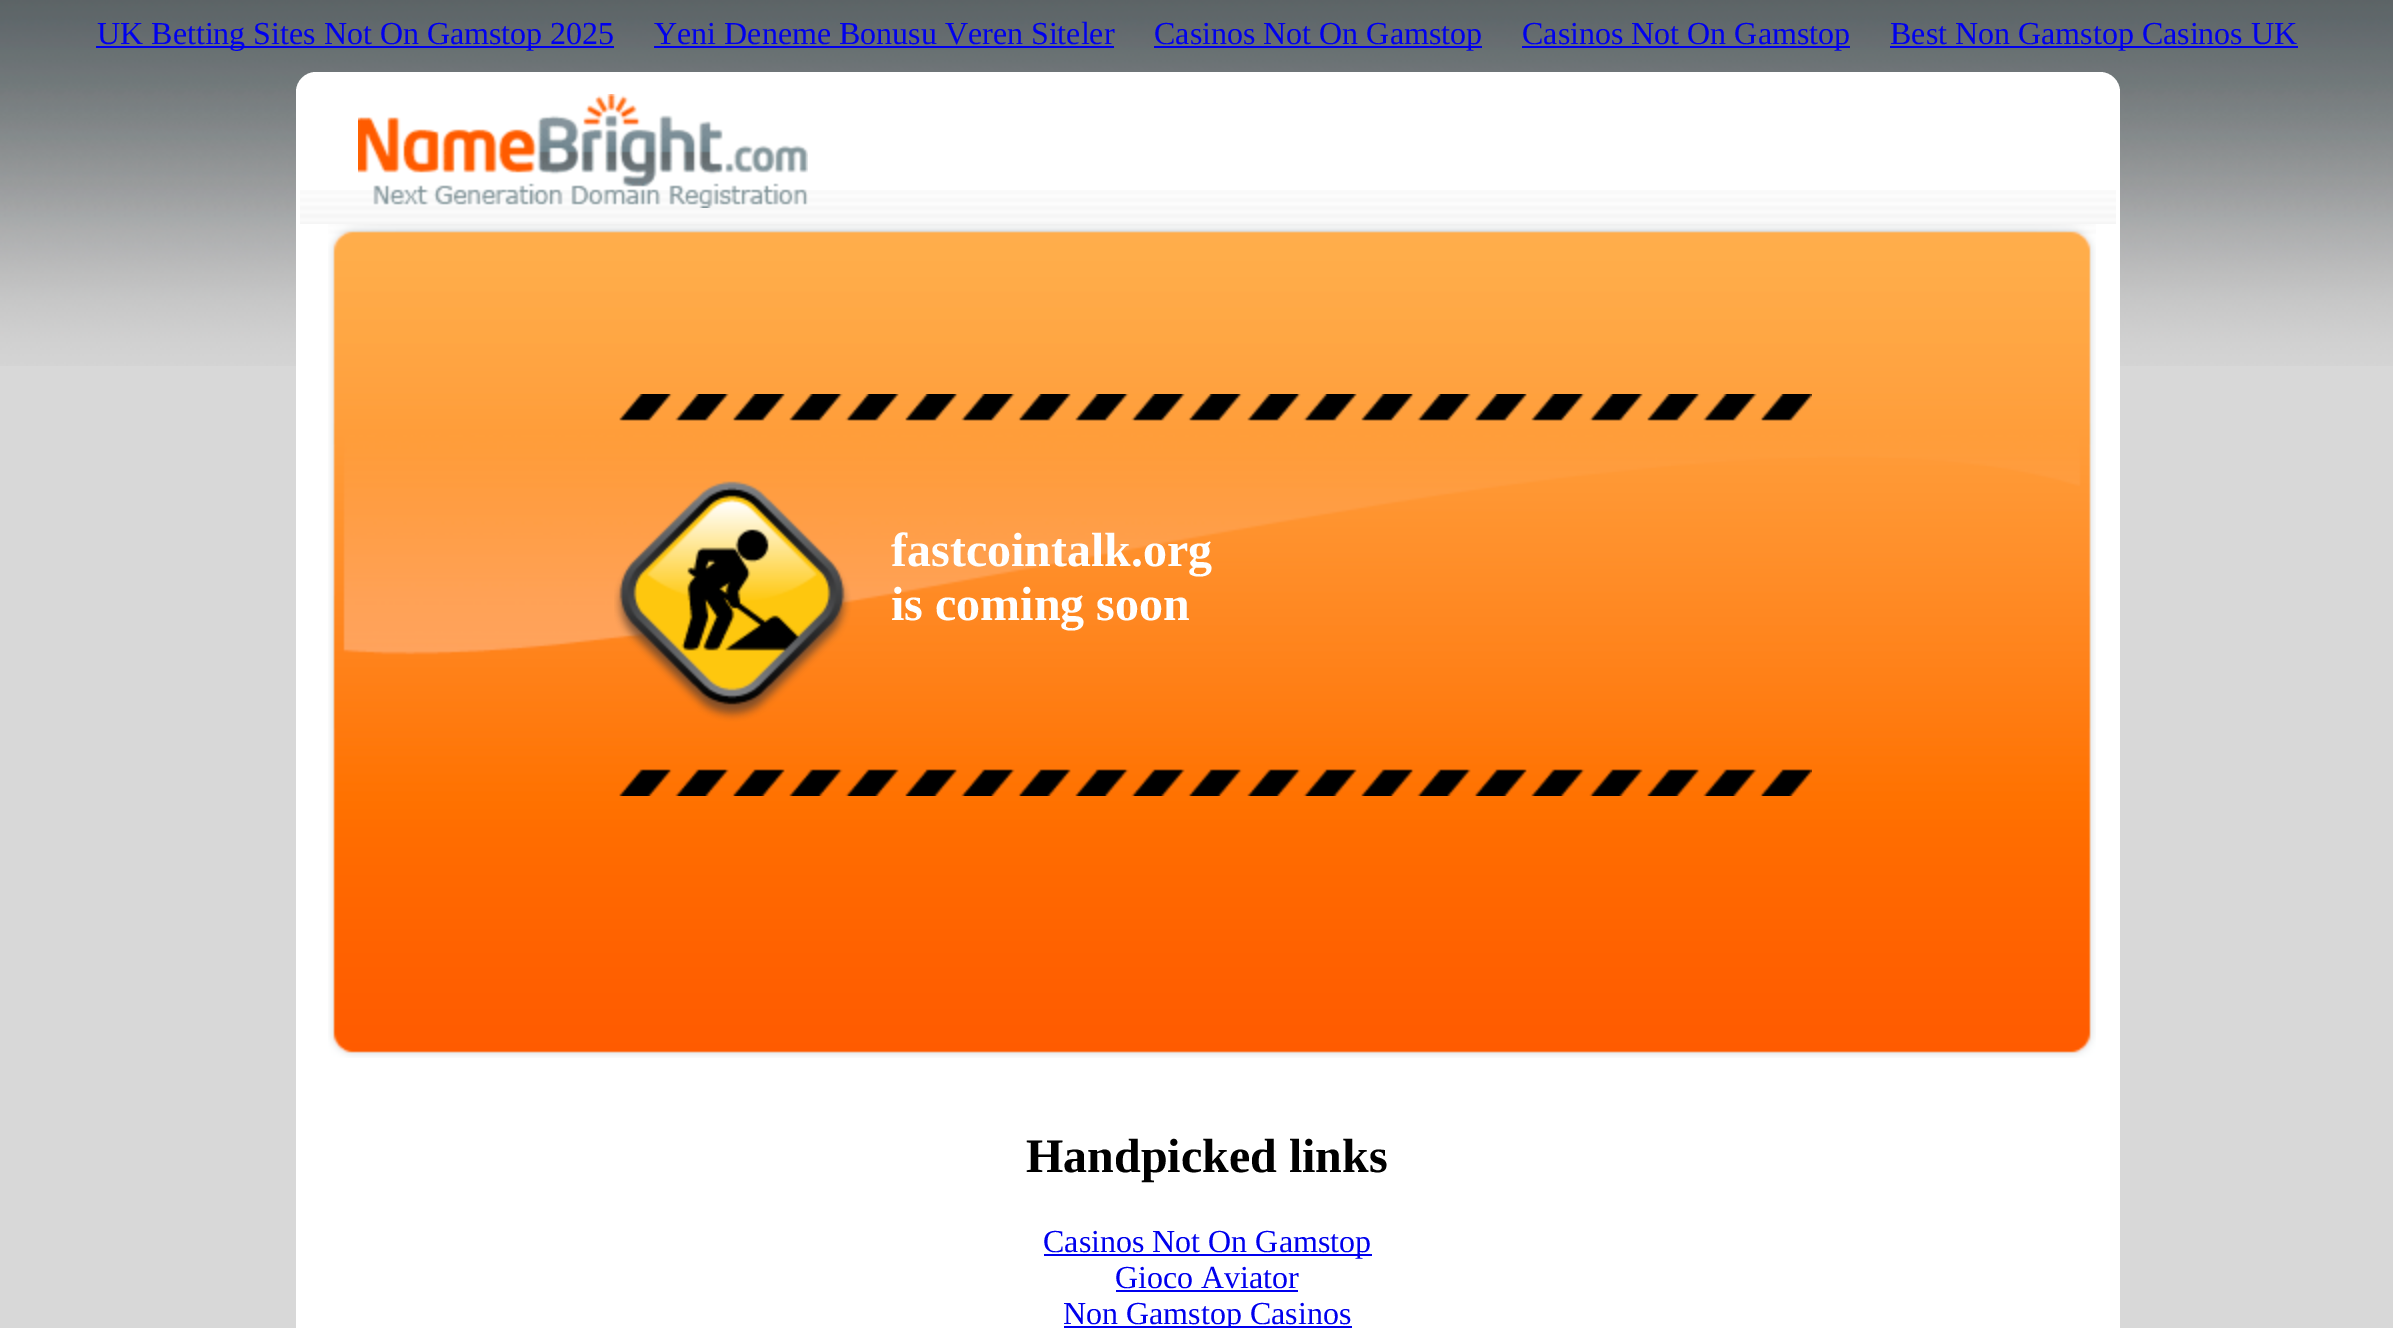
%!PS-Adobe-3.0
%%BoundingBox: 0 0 2393 1328
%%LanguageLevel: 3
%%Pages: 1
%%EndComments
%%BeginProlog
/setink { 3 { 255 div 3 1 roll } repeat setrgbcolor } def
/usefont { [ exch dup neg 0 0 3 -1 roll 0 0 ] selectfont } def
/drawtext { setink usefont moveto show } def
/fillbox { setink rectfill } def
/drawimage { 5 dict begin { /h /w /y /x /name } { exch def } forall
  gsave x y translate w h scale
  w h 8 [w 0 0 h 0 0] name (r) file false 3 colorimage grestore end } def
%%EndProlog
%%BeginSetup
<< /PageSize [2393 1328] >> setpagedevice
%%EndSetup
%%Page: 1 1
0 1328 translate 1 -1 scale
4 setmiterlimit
0 0 2393 1328 216 216 216 fillbox
(assets/img1.rgb) 0 0 2393 366 drawimage
96 46 518 2 0 0 238 fillbox
(UK Betting Sites Not On Gamstop 2025) 97 44 /LiberationSerif-Regular 32 0 0 238 drawtext
(Yeni Deneme Bonusu Veren Siteler) 654 44 /LiberationSerif-Regular 32 0 0 238 drawtext
654 46 460 2 0 0 238 fillbox
1154 46 328 2 0 0 238 fillbox
(Casinos Not On Gamstop) 1154 44 /LiberationSerif-Regular 32 0 0 238 drawtext
1522 46 328 2 0 0 238 fillbox
(Casinos Not On Gamstop) 1522 44 /LiberationSerif-Regular 32 0 0 238 drawtext
1890 46 408 2 0 0 238 fillbox
(Best Non Gamstop Casinos UK) 1890 44 /LiberationSerif-Regular 32 0 0 238 drawtext
255 255 255 setink
316 72 moveto 2100 72 lineto 2111 72 2120 81 2120 92 curveto 2120 124 lineto 296 124 lineto 296 92 lineto 296 81 305 72 316 72 curveto closepath fill
296 124 1824 1204 255 255 255 fillbox
(assets/img2.rgb) 300 190 1816 34 drawimage
(assets/img3.rgb) 358 94 450 114 drawimage
(assets/img4.rgb) 328 224 1768 834 drawimage
(assets/img5.rgb) 614 394 1198 402 drawimage
(fastcointalk.org) 891 566 /LiberationSerif-Bold 48 255 255 255 drawtext
(is coming soon) 891 620 /LiberationSerif-Bold 48 255 255 255 drawtext
(Handpicked links) 1026 1172 /LiberationSerif-Bold 48 0 0 0 drawtext
1044 1254 328 2 0 0 238 fillbox
(Casinos Not On Gamstop) 1043 1252 /LiberationSerif-Regular 32 0 0 238 drawtext
(Gioco Aviator) 1115 1288 /LiberationSerif-Regular 32 0 0 238 drawtext
1116 1290 182 2 0 0 238 fillbox
1064 1326 288 2 0 0 238 fillbox
(Non Gamstop Casinos) 1063 1324 /LiberationSerif-Regular 32 0 0 238 drawtext
showpage
%%EOF
